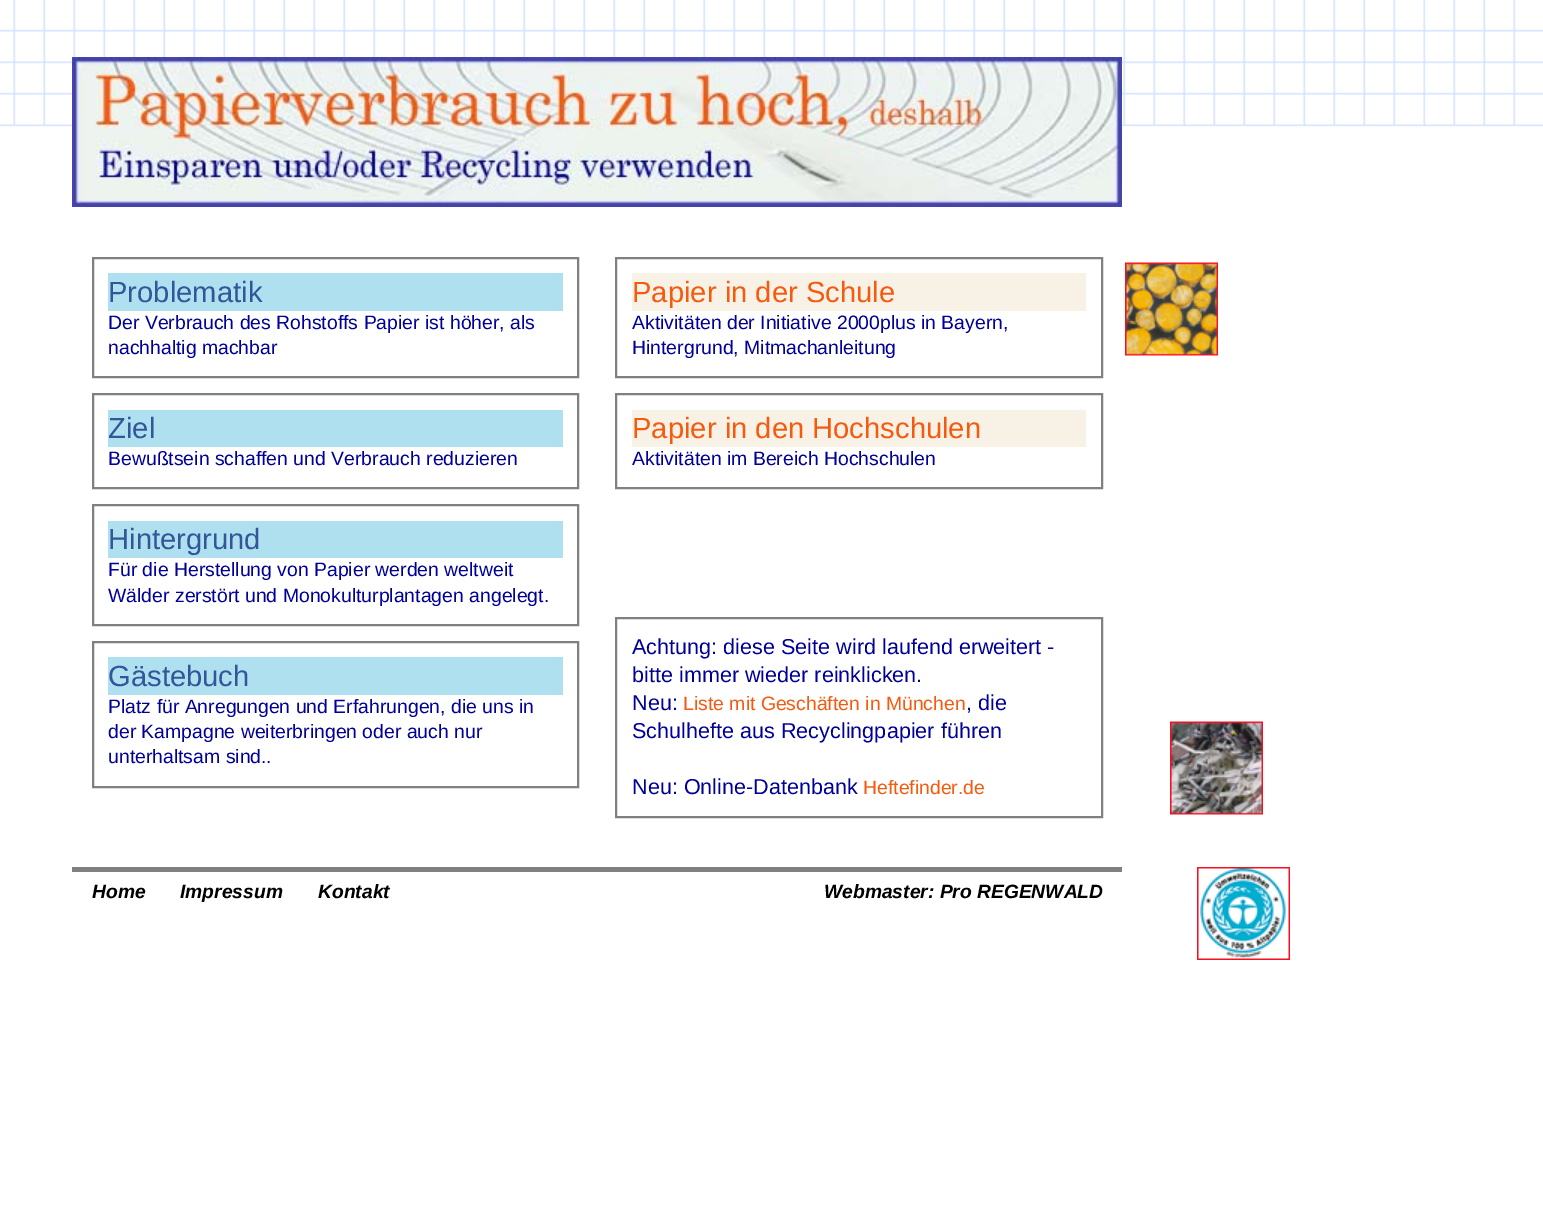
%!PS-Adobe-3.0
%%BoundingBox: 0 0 1543 1209
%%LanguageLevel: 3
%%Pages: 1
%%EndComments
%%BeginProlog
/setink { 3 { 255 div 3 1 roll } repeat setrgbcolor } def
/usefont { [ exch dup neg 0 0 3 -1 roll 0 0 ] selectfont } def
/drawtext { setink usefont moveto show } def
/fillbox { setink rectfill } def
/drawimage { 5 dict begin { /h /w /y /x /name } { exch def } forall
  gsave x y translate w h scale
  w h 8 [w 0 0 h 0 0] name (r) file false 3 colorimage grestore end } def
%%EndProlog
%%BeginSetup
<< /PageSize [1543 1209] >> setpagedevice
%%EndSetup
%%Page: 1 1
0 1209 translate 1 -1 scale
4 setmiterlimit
0 0 1543 1209 255 255 255 fillbox
(assets/img1.rgb) 0 0 1543 127 drawimage
(assets/img2.rgb) 72 57 1050 150 drawimage
128 128 128 setink
2 setlinewidth
93 258 485 119 rectstroke
108 273 455 38 175 224 239 fillbox
(Problematik) 108 302 /LiberationSans-Regular 29.2 51 85 153 drawtext
(Der Verbrauch des Rohstoffs Papier ist höher, als) 108 329 /LiberationSans-Regular 19.4 0 0 153 drawtext
(nachhaltig machbar) 108 354 /LiberationSans-Regular 19.4 0 0 153 drawtext
128 128 128 setink
93 394 485 94 rectstroke
108 410 455 37 175 224 239 fillbox
(Ziel) 108 438 /LiberationSans-Regular 29.2 51 85 153 drawtext
(Bewußtsein schaffen und Verbrauch reduzieren) 108 465 /LiberationSans-Regular 19.4 0 0 153 drawtext
128 128 128 setink
93 505 485 120 rectstroke
108 521 455 37 175 224 239 fillbox
(Hintergrund) 108 549 /LiberationSans-Regular 29.2 51 85 153 drawtext
(Für die Herstellung von Papier werden weltweit) 108 576 /LiberationSans-Regular 19.4 0 0 153 drawtext
(Wälder zerstört und Monokulturplantagen angelegt.) 108 602 /LiberationSans-Regular 19.4 0 0 153 drawtext
128 128 128 setink
93 642 485 145 rectstroke
108 657 455 38 175 224 239 fillbox
(Gästebuch) 108 686 /LiberationSans-Regular 29.2 51 85 153 drawtext
(Platz für Anregungen und Erfahrungen, die uns in) 108 713 /LiberationSans-Regular 19.4 0 0 153 drawtext
(der Kampagne weiterbringen oder auch nur) 108 738 /LiberationSans-Regular 19.4 0 0 153 drawtext
(unterhaltsam sind..) 108 763 /LiberationSans-Regular 19.4 0 0 153 drawtext
128 128 128 setink
616 258 486 119 rectstroke
632 273 454 38 248 241 230 fillbox
(Papier in der Schule) 632 302 /LiberationSans-Regular 29.2 245 90 14 drawtext
(Aktivitäten der Initiative 2000plus in Bayern,) 632 329 /LiberationSans-Regular 19.4 0 0 153 drawtext
(Hintergrund, Mitmachanleitung) 632 354 /LiberationSans-Regular 19.4 0 0 153 drawtext
128 128 128 setink
616 394 486 94 rectstroke
632 410 454 37 248 241 230 fillbox
(Papier in den Hochschulen) 632 438 /LiberationSans-Regular 29.2 245 90 14 drawtext
(Aktivitäten im Bereich Hochschulen) 632 465 /LiberationSans-Regular 19.4 0 0 153 drawtext
128 128 128 setink
616 618 486 199 rectstroke
(Achtung: diese Seite wird laufend erweitert -) 632 654 /LiberationSans-Regular 21.6 0 0 153 drawtext
(bitte immer wieder reinklicken.) 632 682 /LiberationSans-Regular 21.6 0 0 153 drawtext
(Neu:) 632 710 /LiberationSans-Regular 21.6 0 0 153 drawtext
(Liste mit Geschäften in München) 683 710 /LiberationSans-Regular 19.4 245 90 14 drawtext
(, die) 966 710 /LiberationSans-Regular 21.6 0 0 153 drawtext
(Schulhefte aus Recyclingpapier führen) 632 738 /LiberationSans-Regular 21.6 0 0 153 drawtext
(Neu: Online-Datenbank) 632 794 /LiberationSans-Regular 21.6 0 0 153 drawtext
(Heftefinder.de) 863 794 /LiberationSans-Regular 19.4 245 90 14 drawtext
(assets/img3.rgb) 1125 262 93 94 drawimage
(assets/img4.rgb) 1170 721 93 94 drawimage
72 867 1050 5 128 128 128 fillbox
(Home) 92 898 /LiberationSans-BoldItalic 19.25 0 0 0 drawtext
(Impressum) 180 898 /LiberationSans-BoldItalic 19.25 0 0 0 drawtext
(Kontakt) 318 898 /LiberationSans-BoldItalic 19.25 0 0 0 drawtext
(Webmaster: Pro REGENWALD) 824 898 /LiberationSans-BoldItalic 19.25 0 0 0 drawtext
(assets/img5.rgb) 1197 867 93 93 drawimage
showpage
%%EOF
